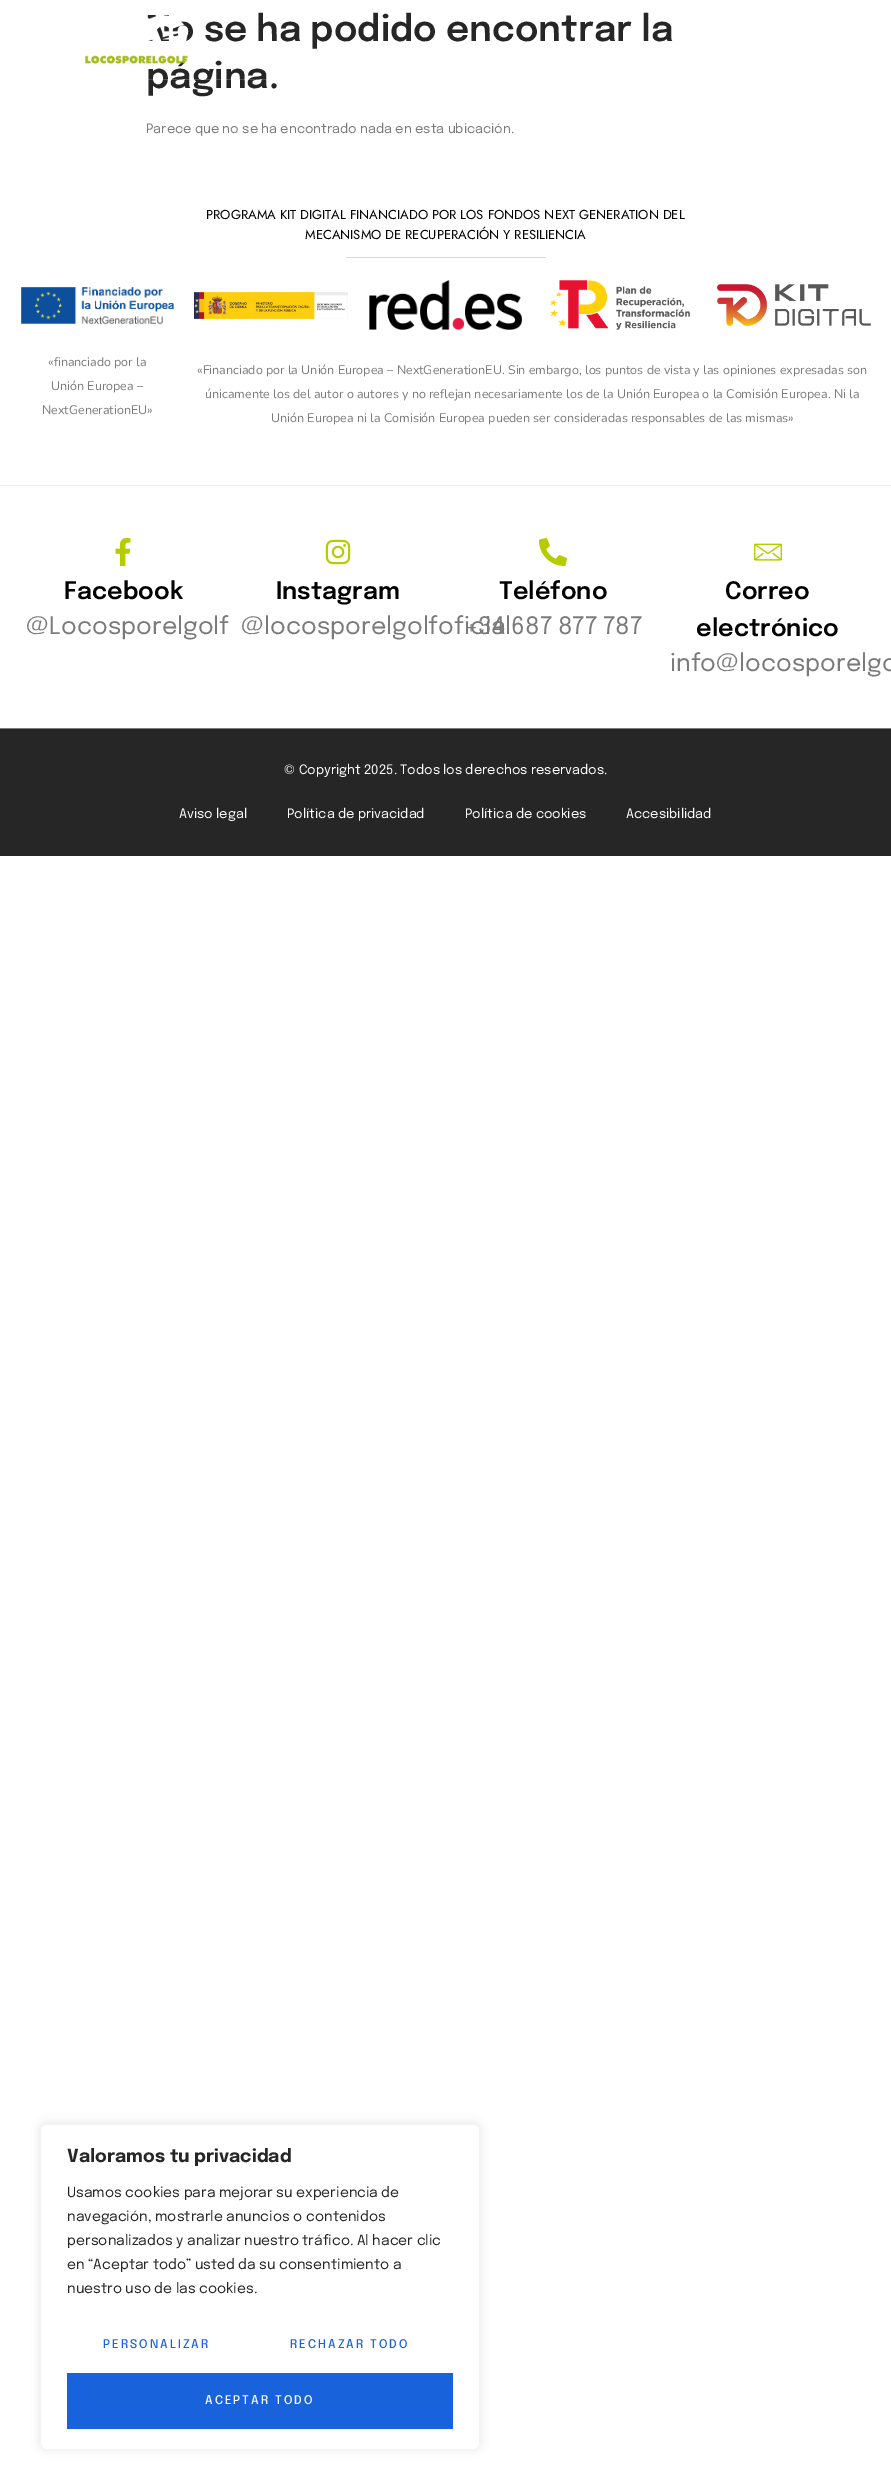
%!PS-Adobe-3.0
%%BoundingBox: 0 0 891 2490
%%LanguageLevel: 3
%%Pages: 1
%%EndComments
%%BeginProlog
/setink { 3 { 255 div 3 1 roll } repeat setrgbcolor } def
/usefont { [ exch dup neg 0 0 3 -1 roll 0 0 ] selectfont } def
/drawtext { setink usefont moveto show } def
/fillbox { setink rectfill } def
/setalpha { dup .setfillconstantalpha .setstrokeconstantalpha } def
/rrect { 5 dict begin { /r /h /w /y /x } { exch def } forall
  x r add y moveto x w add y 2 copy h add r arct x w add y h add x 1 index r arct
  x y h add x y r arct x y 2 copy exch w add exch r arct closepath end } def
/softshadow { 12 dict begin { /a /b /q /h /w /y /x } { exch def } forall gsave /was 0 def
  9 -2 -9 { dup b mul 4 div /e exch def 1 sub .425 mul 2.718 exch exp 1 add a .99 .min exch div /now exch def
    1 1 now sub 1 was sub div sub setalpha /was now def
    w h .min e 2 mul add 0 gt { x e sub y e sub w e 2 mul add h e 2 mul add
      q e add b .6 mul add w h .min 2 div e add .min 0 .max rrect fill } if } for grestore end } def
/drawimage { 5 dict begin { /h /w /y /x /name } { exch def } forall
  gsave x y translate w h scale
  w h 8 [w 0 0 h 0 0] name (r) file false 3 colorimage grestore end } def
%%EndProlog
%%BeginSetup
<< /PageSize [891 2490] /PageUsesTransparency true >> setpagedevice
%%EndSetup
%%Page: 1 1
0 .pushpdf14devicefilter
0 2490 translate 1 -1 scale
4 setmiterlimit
0 0 891 2490 255 255 255 fillbox
(o se ha podido encontrar la) 171 41 /Epilogue-SemiBold 36 38 38 38 drawtext
(página.) 146 88 /Epilogue-SemiBold 36 38 38 38 drawtext
(Parece que no se ha encontrado nada en esta ubicación.) 146 133 /Epilogue-Regular 13 122 122 122 drawtext
0.19 setalpha
147 79 120 1 255 255 255 fillbox
1 setalpha
(assets/img1.rgb) 84 15 104 49 drawimage
(PROGRAMA KIT DIGITAL FINANCIADO POR LOS FONDOS NEXT GENERATION DEL) 206 219 /Jost-Regular 13 0 0 0 drawtext
(MECANISMO DE RECUPERACIÓN Y RESILIENCIA) 305 239 /Jost-Regular 13 0 0 0 drawtext
346 257 200 1 218 218 218 fillbox
(assets/img2.rgb) 21 287 153 38 drawimage
(assets/img3.rgb) 194 292 154 27 drawimage
(assets/img4.rgb) 369 280 153 50 drawimage
(assets/img5.rgb) 550 280 140 50 drawimage
(assets/img6.rgb) 717 284 154 42 drawimage
(«financiado por la) 48 366 /Nunito-Regular 12.5 122 122 122 drawtext
(Unión Europea –) 51 390 /Nunito-Regular 12.5 122 122 122 drawtext
(NextGenerationEU») 42 414 /Nunito-Regular 12.5 122 122 122 drawtext
(«Financiado por la Unión Europea – NextGenerationEU. Sin embargo, los puntos de vista y las opiniones expresadas son) 197 374 /Nunito-Regular 12.5 122 122 122 drawtext
(únicamente los del autor o autores y no reflejan necesariamente los de la Unión Europea o la Comisión Europea. Ni la) 205 398 /Nunito-Regular 12.5 122 122 122 drawtext
(Unión Europea ni la Comisión Europea pueden ser consideradas responsables de las mismas») 271 422 /Nunito-Regular 12.5 122 122 122 drawtext
0 485 891 1 237 237 237 fillbox
(assets/img7.rgb) 115 538 16 28 drawimage
(Facebook) 64 599 /Epilogue-SemiBold 24 0 0 0 drawtext
(@Locosporelgolf) 26 634 /Epilogue-Regular 24 122 122 122 drawtext
(assets/img8.rgb) 325 539 26 26 drawimage
(Instagram) 276 599 /Epilogue-SemiBold 24 0 0 0 drawtext
(@locosporelgolfoficial) 241 634 /Epilogue-Regular 24 122 122 122 drawtext
(assets/img9.rgb) 539 538 28 28 drawimage
(Teléfono) 499 599 /Epilogue-SemiBold 24 0 0 0 drawtext
(+34 687 877 787) 464 634 /Epilogue-Regular 24 122 122 122 drawtext
(assets/img10.rgb) 754 543 28 18 drawimage
(Correo) 725 599 /Epilogue-SemiBold 24 0 0 0 drawtext
(electrónico) 696 636 /Epilogue-SemiBold 24 0 0 0 drawtext
(info@locosporelgo) 670 671 /Epilogue-Regular 24 122 122 122 drawtext
0 729 891 127 38 38 38 fillbox
0 728 891 1 122 122 122 fillbox
(© Copyright 2025. Todos los derechos reservados.) 284 774 /Epilogue-Regular 13 255 255 255 drawtext
(Aviso legal) 179 818 /Epilogue-Regular 13 255 255 255 drawtext
(Política de privacidad) 287 818 /Epilogue-Regular 13 255 255 255 drawtext
(Política de cookies) 465 818 /Epilogue-Regular 13 255 255 255 drawtext
(Accesibilidad) 626 818 /Epilogue-Regular 13 255 255 255 drawtext
172 171 171 setink
40 2123 440 326 6 5 0.3 softshadow
255 255 255 setink
40.5 2124.5 439 325 5.5 rrect gsave fill grestore
244 244 244 setink
stroke
(Valoramos tu privacidad) 67 2162 /Epilogue-Bold 18 38 38 38 drawtext
(Usamos cookies para mejorar su experiencia de) 67 2197 /Epilogue-Regular 14 38 38 38 drawtext
(navegación, mostrarle anuncios o contenidos) 67 2221 /Epilogue-Regular 14 38 38 38 drawtext
(personalizados y analizar nuestro tráfico. Al hacer clic) 67 2245 /Epilogue-Regular 14 38 38 38 drawtext
(en “Aceptar todo” usted da su consentimiento a) 67 2269 /Epilogue-Regular 14 38 38 38 drawtext
(nuestro uso de las cookies.) 67 2293 /Epilogue-Regular 14 38 38 38 drawtext
/Epilogue-Medium 12 usefont
24 99 220 setink
103 2348 moveto 2 0 (PERSONALIZAR) ashow
290 2348 moveto 2 0 (RECHAZAR TODO) ashow
67 2373 386 56 24 99 220 fillbox
255 255 255 setink
205 2404 moveto 2 0 (ACEPTAR TODO) ashow
.poppdf14devicefilter showpage
%%EOF
